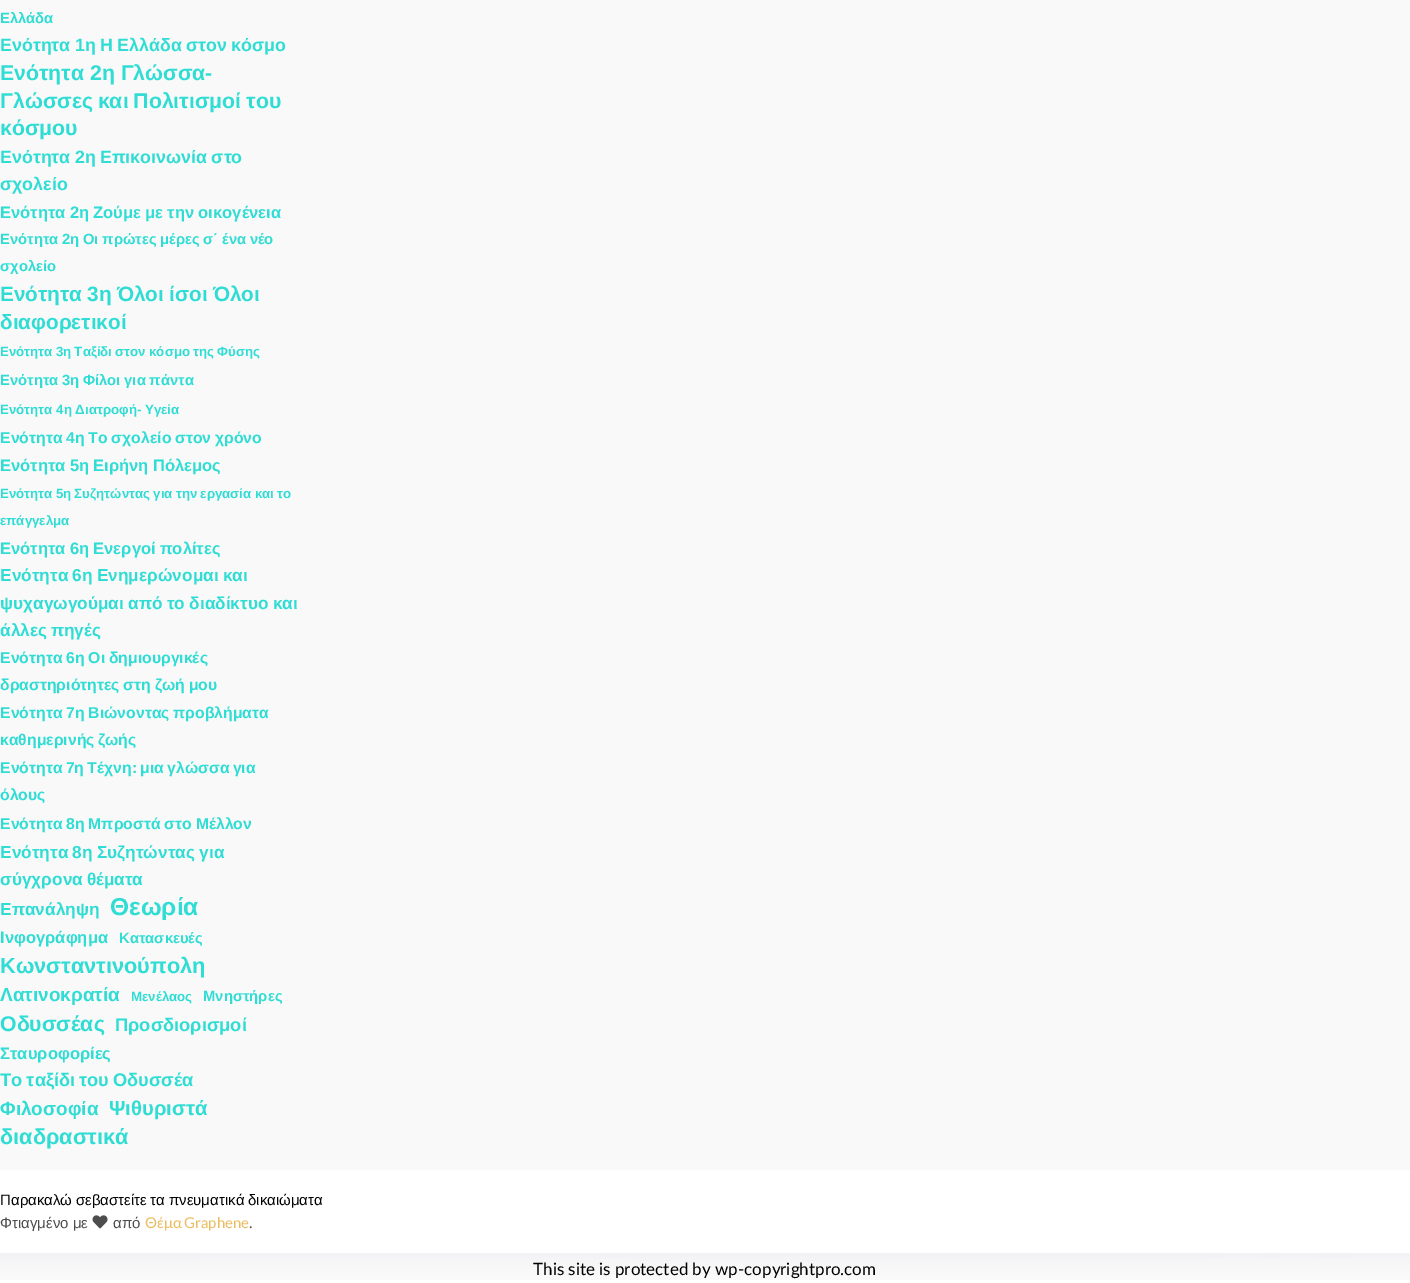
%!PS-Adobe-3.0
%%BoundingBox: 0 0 1410 1283
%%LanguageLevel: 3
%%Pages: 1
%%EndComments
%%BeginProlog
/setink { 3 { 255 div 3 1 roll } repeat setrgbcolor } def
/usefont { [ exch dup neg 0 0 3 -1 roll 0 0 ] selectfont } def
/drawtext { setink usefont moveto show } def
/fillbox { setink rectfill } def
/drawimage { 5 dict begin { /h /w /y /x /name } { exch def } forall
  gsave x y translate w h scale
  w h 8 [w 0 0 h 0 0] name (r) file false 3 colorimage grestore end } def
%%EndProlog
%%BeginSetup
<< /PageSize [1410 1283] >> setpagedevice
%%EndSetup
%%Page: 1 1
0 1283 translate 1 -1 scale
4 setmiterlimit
0 0 1410 1283 255 255 255 fillbox
(assets/img1.rgb) 0 1253 1410 27 drawimage
0 0 1410 1170 249 249 249 fillbox
(Ελλάδα) 0 23 /LiberationSans-Bold 14.8 48 221 213 drawtext
/LiberationSans-Bold 17.8 usefont
0 51 moveto -0.5 0 32 (Ενότητα 1η Η Ελλάδα στον κόσμο) widthshow
(Ενότητα 2η Γλώσσα-) 0 80 /LiberationSans-Bold 21.25 48 221 213 drawtext
0 108 moveto -1 0 32 (Γλώσσες και Πολιτισμοί του) widthshow
(κόσμου) 0 135 /LiberationSans-Bold 21.25 48 221 213 drawtext
/LiberationSans-Bold 17.8 usefont
0 163 moveto -0.5 0 32 (Ενότητα 2η Επικοινωνία στο) widthshow
(σχολείο) 0 190 /LiberationSans-Bold 17.8 48 221 213 drawtext
/LiberationSans-Bold 16.6 usefont
0 218 moveto -0.5 0 32 (Ενότητα 2η Ζούμε με την οικογένεια) widthshow
/LiberationSans-Bold 14.8 usefont
0 244 moveto -0.5 0 32 (Ενότητα 2η Οι πρώτες μέρες σ΄ ένα νέο) widthshow
(σχολείο) 0 271 /LiberationSans-Bold 14.8 48 221 213 drawtext
/LiberationSans-Bold 20.75 usefont
0 301 moveto -0.5 0 32 (Ενότητα 3η Όλοι ίσοι Όλοι) widthshow
(διαφορετικοί) 0 329 /LiberationSans-Bold 20.75 48 221 213 drawtext
/LiberationSans-Bold 13.3 usefont
0 356 moveto -0.5 0 32 (Ενότητα 3η Ταξίδι στον κόσμο της Φύσης) widthshow
/LiberationSans-Bold 14.8 usefont
0 385 moveto -0.5 0 32 (Ενότητα 3η Φίλοι για πάντα) widthshow
(Ενότητα 4η Διατροφή- Υγεία) 0 414 /LiberationSans-Bold 13.3 48 221 213 drawtext
/LiberationSans-Bold 15.75 usefont
0 443 moveto -0.5 0 32 (Ενότητα 4η Το σχολείο στον χρόνο) widthshow
/LiberationSans-Bold 16.6 usefont
0 471 moveto -0.5 0 32 (Ενότητα 5η Ειρήνη Πόλεμος) widthshow
/LiberationSans-Bold 13.3 usefont
0 498 moveto -0.5 0 32 (Ενότητα 5η Συζητώντας για την εργασία και το) widthshow
(επάγγελμα) 0 525 /LiberationSans-Bold 13.3 48 221 213 drawtext
/LiberationSans-Bold 16.6 usefont
0 554 moveto -0.5 0 32 (Ενότητα 6η Ενεργοί πολίτες) widthshow
/LiberationSans-Bold 17.25 usefont
0 581 moveto -0.5 0 32 (Ενότητα 6η Ενημερώνομαι και) widthshow
0 609 moveto -0.5 0 32 (ψυχαγωγούμαι από το διαδίκτυο και) widthshow
0 636 moveto -1 0 32 (άλλες πηγές) widthshow
/LiberationSans-Bold 15.75 usefont
0 663 moveto -0.5 0 32 (Ενότητα 6η Οι δημιουργικές) widthshow
0 690 moveto -0.5 0 32 (δραστηριότητες στη ζωή μου) widthshow
0 718 moveto -0.5 0 32 (Ενότητα 7η Βιώνοντας προβλήματα) widthshow
0 745 moveto -1 0 32 (καθημερινής ζωής) widthshow
0 773 moveto -1 0 32 (Ενότητα 7η Τέχνη: μια γλώσσα για) widthshow
(όλους) 0 800 /LiberationSans-Bold 15.75 48 221 213 drawtext
0 829 moveto -0.5 0 32 (Ενότητα 8η Μπροστά στο Μέλλον) widthshow
/LiberationSans-Bold 17.25 usefont
0 858 moveto -0.5 0 32 (Ενότητα 8η Συζητώντας για) widthshow
0 885 moveto -1 0 32 (σύγχρονα θέματα) widthshow
(Επανάληψη) 0 915 /LiberationSans-Bold 17.25 48 221 213 drawtext
(Θεωρία) 110 915 /LiberationSans-Bold 24.5 48 221 213 drawtext
(Ινφογράφημα) 0 943 /LiberationSans-Bold 16.6 48 221 213 drawtext
(Κατασκευές) 119 943 /LiberationSans-Bold 14.8 48 221 213 drawtext
(Κωνσταντινούπολη) 0 973 /LiberationSans-Bold 21.75 48 221 213 drawtext
(Λατινοκρατία) 0 1001 /LiberationSans-Bold 19 48 221 213 drawtext
(Μενέλαος) 131 1001 /LiberationSans-Bold 13.3 48 221 213 drawtext
(Μνηστήρες) 203 1001 /LiberationSans-Bold 14.8 48 221 213 drawtext
(Οδυσσέας) 0 1031 /LiberationSans-Bold 21.25 48 221 213 drawtext
(Προσδιορισμοί) 115 1031 /LiberationSans-Bold 18.25 48 221 213 drawtext
(Σταυροφορίες) 0 1059 /LiberationSans-Bold 16.6 48 221 213 drawtext
/LiberationSans-Bold 18.25 usefont
0 1086 moveto -1 0 32 (Το ταξίδι του Οδυσσέα) widthshow
(Φιλοσοφία) 0 1115 /LiberationSans-Bold 19 48 221 213 drawtext
(Ψιθυριστά) 109 1115 /LiberationSans-Bold 20.25 48 221 213 drawtext
(διαδραστικά) 0 1144 /LiberationSans-Bold 21.75 48 221 213 drawtext
/LiberationSans-Regular 15 usefont
0 0 0 setink
0 1205 moveto -0.5 0 32 (Παρακαλώ σεβαστείτε τα πνευματικά δικαιώματα) widthshow
(Φτιαγμένο με) 0 1228 /LiberationSans-Regular 15 77 77 77 drawtext
(assets/img2.rgb) 92 1215 16 14 drawimage
(από) 113 1228 /LiberationSans-Regular 15 77 77 77 drawtext
/Lato-Regular 15 usefont
235 189 97 setink
145 1228 moveto -1 0 32 (Θέμα Graphene) widthshow
(.) 249 1228 /Lato-Regular 15 77 77 77 drawtext
(This site is protected by wp-copyrightpro.com) 533 1275 /Lato-Regular 17 0 0 0 drawtext
showpage
%%EOF
